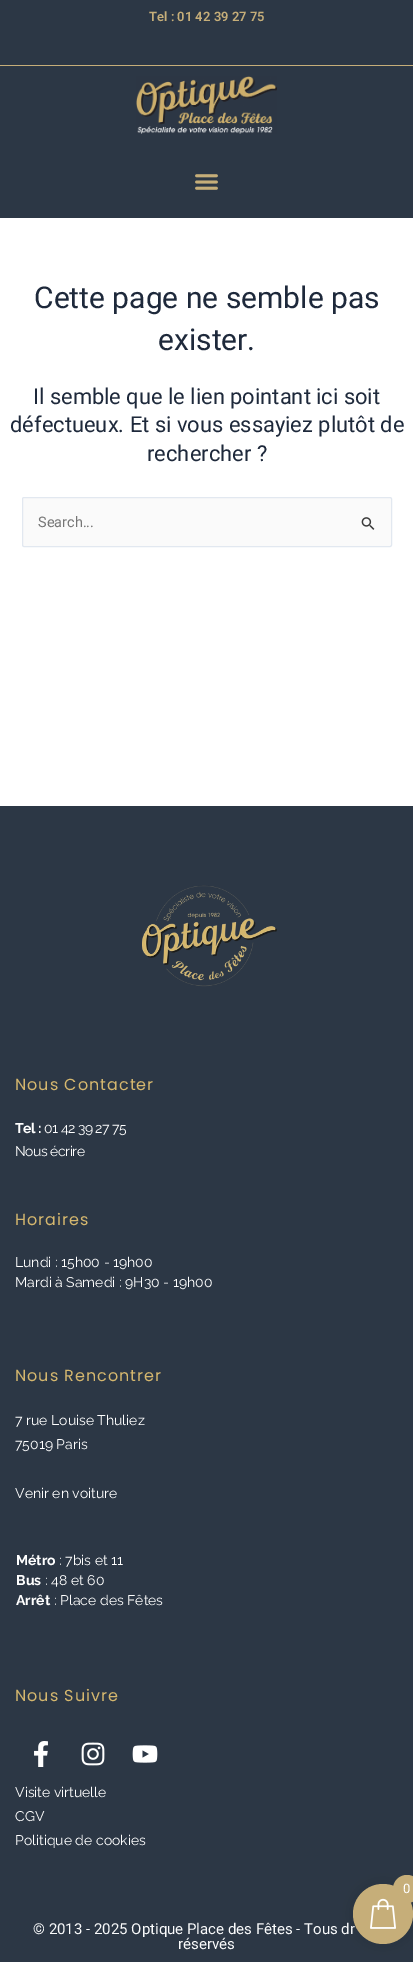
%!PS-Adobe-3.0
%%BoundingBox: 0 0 413 1962
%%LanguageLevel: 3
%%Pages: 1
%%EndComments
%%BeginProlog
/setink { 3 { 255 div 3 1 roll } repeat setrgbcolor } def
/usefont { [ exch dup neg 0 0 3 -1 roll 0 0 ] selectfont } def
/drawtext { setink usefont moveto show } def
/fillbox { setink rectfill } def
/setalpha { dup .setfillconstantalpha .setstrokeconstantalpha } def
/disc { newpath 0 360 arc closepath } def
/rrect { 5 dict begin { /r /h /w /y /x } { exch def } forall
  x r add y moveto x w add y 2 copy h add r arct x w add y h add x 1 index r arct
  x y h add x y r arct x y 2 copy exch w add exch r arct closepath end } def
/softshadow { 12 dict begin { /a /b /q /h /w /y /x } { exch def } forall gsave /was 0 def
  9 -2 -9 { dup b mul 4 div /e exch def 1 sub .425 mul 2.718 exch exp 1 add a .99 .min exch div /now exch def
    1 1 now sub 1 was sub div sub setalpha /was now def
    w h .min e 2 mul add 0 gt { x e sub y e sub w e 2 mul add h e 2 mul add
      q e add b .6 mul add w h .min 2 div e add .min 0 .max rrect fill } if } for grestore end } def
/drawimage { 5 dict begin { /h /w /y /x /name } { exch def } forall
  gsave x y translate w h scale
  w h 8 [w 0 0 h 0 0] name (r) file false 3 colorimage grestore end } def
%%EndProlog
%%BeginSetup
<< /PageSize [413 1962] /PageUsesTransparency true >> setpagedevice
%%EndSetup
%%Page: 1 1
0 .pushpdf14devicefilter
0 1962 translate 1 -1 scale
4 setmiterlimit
0 0 413 1962 255 255 255 fillbox
0 0 413 65 44 55 69 fillbox
0 65 413 1 198 174 121 fillbox
(Tel : 01 42 39 27 75) 149 21 /Roboto-SemiBold 13 198 174 121 drawtext
0 66 413 152 44 55 69 fillbox
(assets/img1.rgb) 136 76 141 58 drawimage
(assets/img2.rgb) 195 174 23 16 drawimage
(Cette page ne semble pas) 34 308 /Roboto-Regular 30 30 41 59 drawtext
(exister.) 158 350 /Roboto-Regular 30 30 41 59 drawtext
(Il semble que le lien pointant ici soit) 33 404 /Roboto-Regular 21.9 30 41 59 drawtext
(défectueux. Et si vous essayiez plutôt de) 10 432 /Roboto-Regular 21.9 30 41 59 drawtext
(rechercher ?) 147 461 /Roboto-Regular 21.9 30 41 59 drawtext
250 250 250 setink
22.5 497.5 369 49 1.5 rrect gsave fill grestore
226 232 240 setink
stroke
(Search...) 38 527 /Roboto-Regular 14.5 117 117 117 drawtext
(assets/img3.rgb) 361 517 14 13 drawimage
0 806 413 1156 44 55 69 fillbox
(assets/img4.rgb) 142 885 135 102 drawimage
/Poppins-Regular 16 usefont
213 183 110 setink
15 1090 moveto 1 0 (Nous Contacter) ashow
/Raleway-Bold 14 usefont
255 255 255 setink
15 1133 moveto -0.5 0 (Tel :) ashow
/Raleway-Regular 14 usefont
44 1133 moveto -0.5 0 (01 42 39 27 75) ashow
15 1156 moveto -0.5 0 (Nous écrire) ashow
/Poppins-Regular 16 usefont
213 183 110 setink
15 1225 moveto 1 0 (Horaires) ashow
(Lundi : 15h00 - 19h00) 15 1267 /Raleway-Regular 14 255 255 255 drawtext
(Mardi à Samedi : 9H30 - 19h00) 15 1287 /Raleway-Regular 14 255 255 255 drawtext
/Poppins-Regular 16 usefont
213 183 110 setink
15 1381 moveto 1 0 (Nous Rencontrer) ashow
(7 rue Louise Thuliez) 15 1425 /Raleway-Regular 14 255 255 255 drawtext
(75019 Paris) 15 1449 /Raleway-Regular 14 255 255 255 drawtext
(Venir en voiture) 15 1498 /Raleway-Regular 14 255 255 255 drawtext
(Métro) 16 1565 /Raleway-Bold 14 255 255 255 drawtext
(: 7bis et 11) 59 1565 /Raleway-Regular 14 255 255 255 drawtext
(Bus) 16 1585 /Raleway-Bold 14 255 255 255 drawtext
(: 48 et 60) 45 1585 /Raleway-Regular 14 255 255 255 drawtext
(Arrêt) 16 1605 /Raleway-Bold 14 255 255 255 drawtext
(: Place des Fêtes) 54 1605 /Raleway-Regular 14 255 255 255 drawtext
/Poppins-Regular 16 usefont
213 183 110 setink
15 1701 moveto 1 0 (Nous Suivre) ashow
(assets/img5.rgb) 34 1741 14 26 drawimage
(assets/img6.rgb) 81 1742 24 24 drawimage
(assets/img7.rgb) 132 1745 26 18 drawimage
(Visite virtuelle) 15 1797 /Raleway-Regular 14 255 255 255 drawtext
(CGV) 15 1821 /Raleway-Regular 14 255 255 255 drawtext
(Politique de cookies) 15 1845 /Raleway-Regular 14 255 255 255 drawtext
(© 2013 - 2025 Optique Place des Fêtes - Tous dr) 33 1934 /Roboto-Regular 15 249 250 251 drawtext
(réservés) 178 1949 /Roboto-Regular 15 249 250 251 drawtext
0 0 0 setink
351 1882 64 64 32 7.5 0.1 softshadow
198 174 121 setink
383 1914 30 disc fill
(assets/img8.rgb) 370 1898 26 31 drawimage
407 1889 14 disc fill
(0) 403 1893 /Roboto-Regular 13 255 255 255 drawtext
.poppdf14devicefilter showpage
%%EOF
